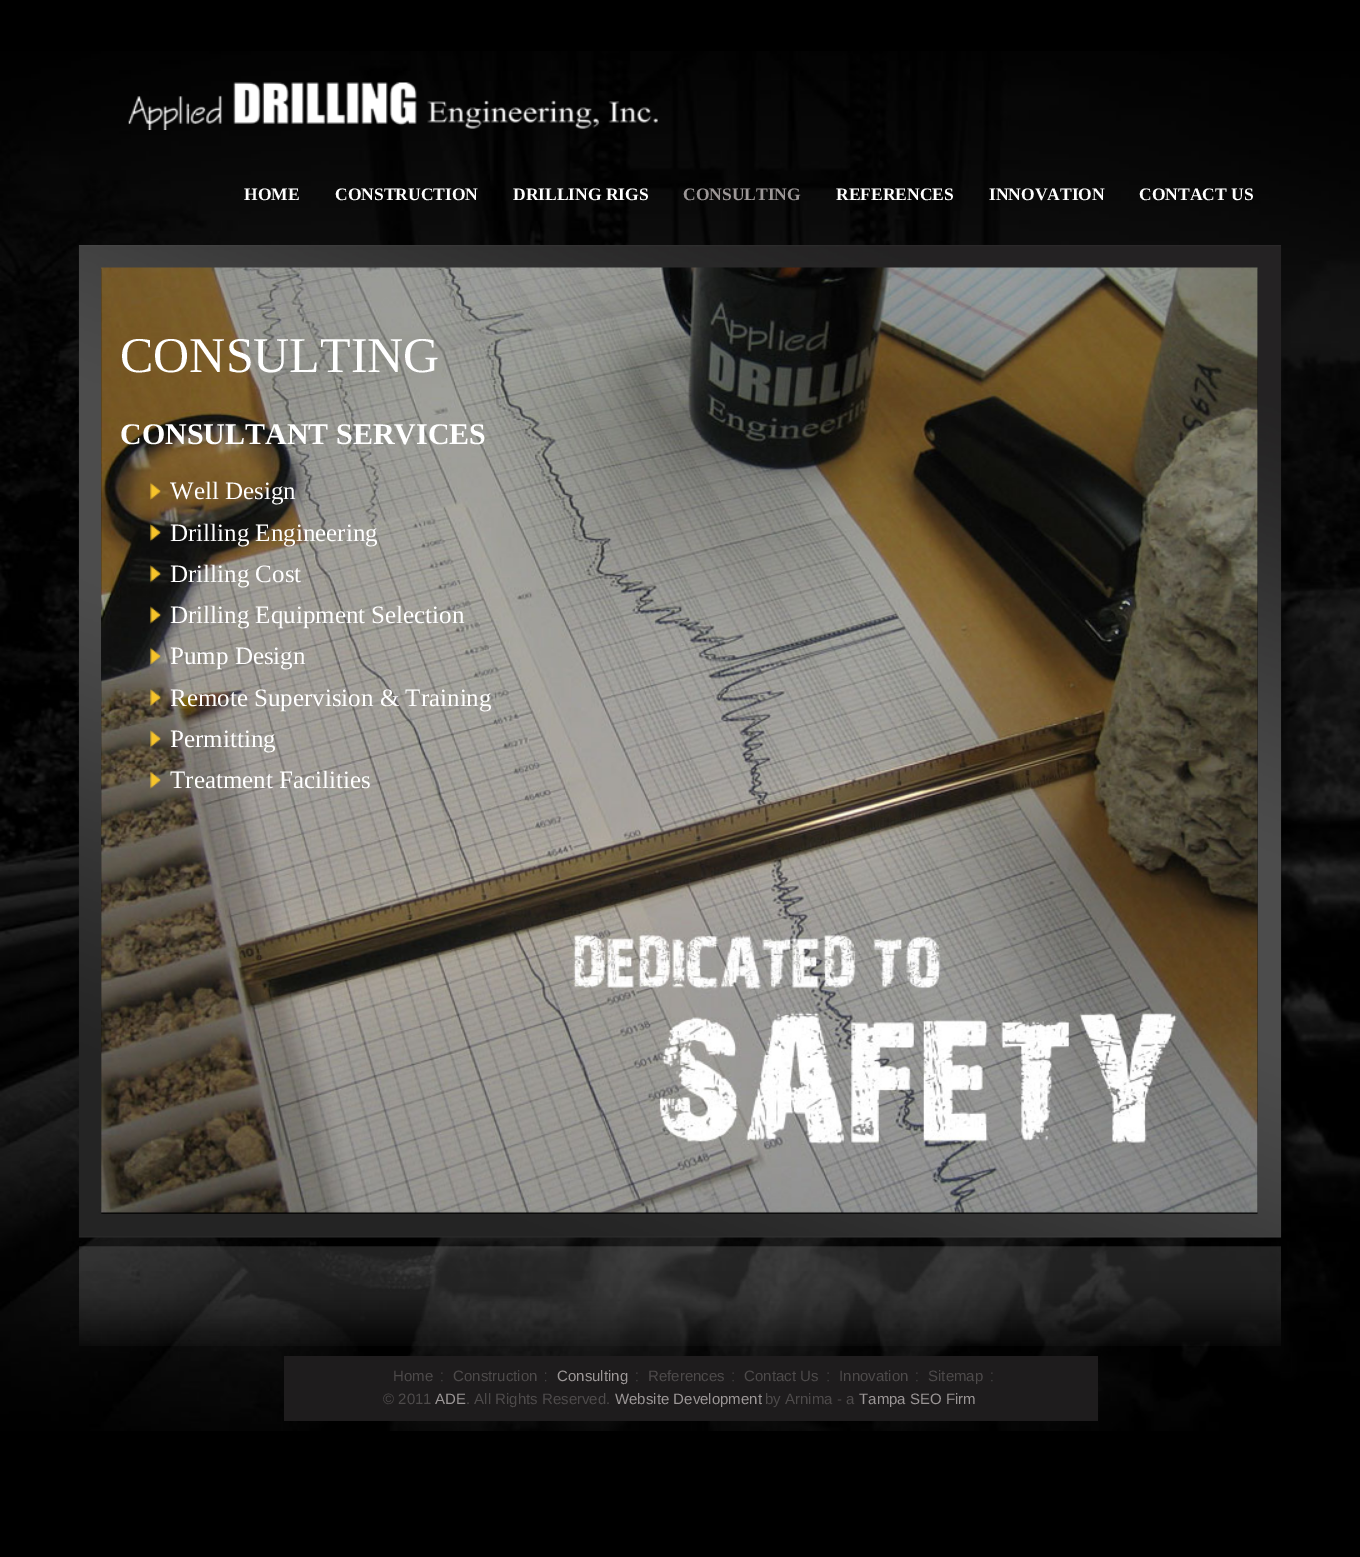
%!PS-Adobe-3.0
%%BoundingBox: 0 0 1360 1557
%%LanguageLevel: 3
%%Pages: 1
%%EndComments
%%BeginProlog
/setink { 3 { 255 div 3 1 roll } repeat setrgbcolor } def
/usefont { [ exch dup neg 0 0 3 -1 roll 0 0 ] selectfont } def
/drawtext { setink usefont moveto show } def
/fillbox { setink rectfill } def
/drawimage { 5 dict begin { /h /w /y /x /name } { exch def } forall
  gsave x y translate w h scale
  w h 8 [w 0 0 h 0 0] name (r) file false 3 colorimage grestore end } def
%%EndProlog
%%BeginSetup
<< /PageSize [1360 1557] >> setpagedevice
%%EndSetup
%%Page: 1 1
0 1557 translate 1 -1 scale
4 setmiterlimit
0 0 1360 1557 0 0 0 fillbox
(assets/img1.rgb) 0 51 1360 1380 drawimage
(assets/img2.rgb) 128 82 530 48 drawimage
(HOME) 244 200 /LiberationSerif-Bold 17.5 255 255 255 drawtext
(CONSTRUCTION) 335 200 /LiberationSerif-Bold 17.5 255 255 255 drawtext
(DRILLING RIGS) 513 200 /LiberationSerif-Bold 17.5 255 255 255 drawtext
(CONSULTING) 683 200 /LiberationSerif-Bold 17.5 156 151 151 drawtext
(REFERENCES) 836 200 /LiberationSerif-Bold 17.5 255 255 255 drawtext
(INNOVATION) 989 200 /LiberationSerif-Bold 17.5 255 255 255 drawtext
(CONTACT US) 1139 200 /LiberationSerif-Bold 17.5 255 255 255 drawtext
(assets/img3.rgb) 78 245 1204 993 drawimage
(assets/img4.rgb) 101 267 1157 946 drawimage
(CONSULTING) 120 372 /LiberationSerif-Regular 50 255 255 255 drawtext
(CONSULTANT SERVICES) 120 444 /LiberationSerif-Bold 30 255 255 255 drawtext
(assets/img5.rgb) 150 482 11 18 drawimage
(Well Design) 170 499 /LiberationSerif-Regular 25 255 255 255 drawtext
(assets/img6.rgb) 150 523 12 19 drawimage
(Drilling Engineering) 170 541 /LiberationSerif-Regular 25 255 255 255 drawtext
(assets/img7.rgb) 150 565 12 18 drawimage
(Drilling Cost) 170 582 /LiberationSerif-Regular 25 255 255 255 drawtext
(assets/img8.rgb) 150 606 12 18 drawimage
(Drilling Equipment Selection) 170 623 /LiberationSerif-Regular 25 255 255 255 drawtext
(assets/img9.rgb) 150 647 11 18 drawimage
(Pump Design) 170 664 /LiberationSerif-Regular 25 255 255 255 drawtext
(assets/img10.rgb) 150 688 12 19 drawimage
(Remote Supervision & Training) 170 706 /LiberationSerif-Regular 25 255 255 255 drawtext
(assets/img11.rgb) 150 730 11 18 drawimage
(Permitting) 170 747 /LiberationSerif-Regular 25 255 255 255 drawtext
(assets/img12.rgb) 150 771 11 18 drawimage
(Treatment Facilities) 170 788 /LiberationSerif-Regular 25 255 255 255 drawtext
(assets/img13.rgb) 79 1246 1202 100 drawimage
284 1356 814 65 30 28 29 fillbox
(assets/img14.rgb) 441 1372 2 10 drawimage
(Home) 393 1381 /LiberationSans-Regular 15 77 74 74 drawtext
(assets/img15.rgb) 545 1372 2 10 drawimage
(Construction) 453 1381 /LiberationSans-Regular 15 77 74 74 drawtext
(assets/img14.rgb) 636 1372 2 10 drawimage
(Consulting) 557 1381 /LiberationSans-Regular 15 156 151 151 drawtext
(assets/img16.rgb) 732 1372 2 10 drawimage
(References) 648 1381 /LiberationSans-Regular 15 77 74 74 drawtext
(assets/img16.rgb) 827 1372 2 10 drawimage
(Contact Us) 744 1381 /LiberationSans-Regular 15 77 74 74 drawtext
(assets/img14.rgb) 916 1372 2 10 drawimage
(Innovation) 839 1381 /LiberationSans-Regular 15 77 74 74 drawtext
(assets/img14.rgb) 991 1372 2 10 drawimage
(Sitemap) 928 1381 /LiberationSans-Regular 15 77 74 74 drawtext
(© 2011) 383 1404 /LiberationSans-Regular 15 77 74 74 drawtext
(ADE) 435 1404 /LiberationSans-Regular 15 156 151 151 drawtext
(. All Rights Reserved.) 466 1404 /LiberationSans-Regular 15 77 74 74 drawtext
(Website Development) 615 1404 /LiberationSans-Regular 15 156 151 151 drawtext
(by Arnima - a) 765 1404 /LiberationSans-Regular 15 77 74 74 drawtext
(Tampa SEO Firm) 859 1404 /LiberationSans-Regular 15 156 151 151 drawtext
showpage
%%EOF
